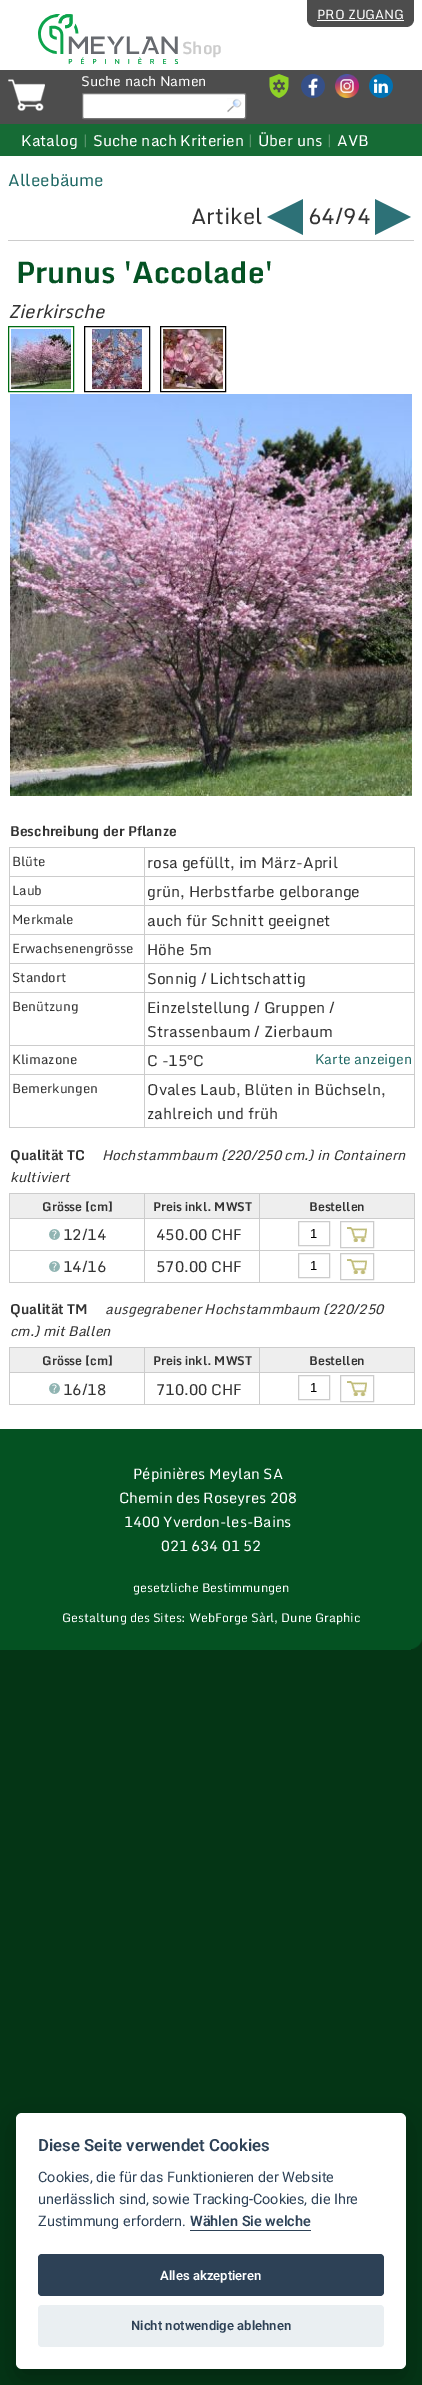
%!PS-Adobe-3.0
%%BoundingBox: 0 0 422 2385
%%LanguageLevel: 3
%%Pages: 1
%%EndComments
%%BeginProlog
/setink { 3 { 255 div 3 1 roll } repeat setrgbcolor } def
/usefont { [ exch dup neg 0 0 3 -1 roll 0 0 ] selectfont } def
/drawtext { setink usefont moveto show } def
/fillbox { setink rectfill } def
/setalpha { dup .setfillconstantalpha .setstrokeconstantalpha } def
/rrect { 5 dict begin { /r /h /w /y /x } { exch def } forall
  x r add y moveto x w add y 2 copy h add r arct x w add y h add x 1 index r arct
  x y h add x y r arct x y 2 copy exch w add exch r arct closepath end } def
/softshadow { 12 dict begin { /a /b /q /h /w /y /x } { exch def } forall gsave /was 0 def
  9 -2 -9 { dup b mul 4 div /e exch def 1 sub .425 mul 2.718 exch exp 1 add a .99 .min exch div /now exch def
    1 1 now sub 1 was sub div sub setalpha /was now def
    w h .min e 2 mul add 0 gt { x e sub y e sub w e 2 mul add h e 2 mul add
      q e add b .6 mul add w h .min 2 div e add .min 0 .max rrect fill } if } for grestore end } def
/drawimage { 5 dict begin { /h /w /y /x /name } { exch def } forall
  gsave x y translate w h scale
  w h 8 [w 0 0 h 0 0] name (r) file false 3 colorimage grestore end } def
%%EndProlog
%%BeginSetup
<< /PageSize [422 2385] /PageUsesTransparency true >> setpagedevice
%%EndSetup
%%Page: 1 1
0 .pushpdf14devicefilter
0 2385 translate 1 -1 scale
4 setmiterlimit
0 0 422 2385 4 53 21 fillbox
0 0 422 70 255 255 255 fillbox
77 77 77 setink
307 0 moveto 414 0 lineto 414 19 lineto 414 23.5 410.5 27 406 27 curveto 315 27 lineto 310.5 27 307 23.5 307 19 curveto closepath fill
(PRO ZUGANG) 317 19 /Monda-Regular 13 255 255 255 drawtext
317 20 87 1 255 255 255 fillbox
(assets/img1.rgb) 38 14 140 50 drawimage
(Shop) 182 54 /Monda-Bold 16.75 204 204 204 drawtext
0 70 422 54 77 77 77 fillbox
(assets/img2.rgb) 8 79 37 32 drawimage
(Suche nach Namen) 81 86 /Monda-Regular 13.7 255 255 255 drawtext
82.5 93.5 163 25 1.5 rrect gsave fill grestore
118 118 118 setink
stroke
(assets/img3.rgb) 227 98 15 15 drawimage
(assets/img4.rgb) 269 74 20 24 drawimage
(assets/img5.rgb) 301 74 24 24 drawimage
(assets/img6.rgb) 335 74 24 24 drawimage
(assets/img7.rgb) 369 74 24 24 drawimage
0 124 422 32 22 107 53 fillbox
(Katalog) 21 146 /Monda-Regular 15.25 255 255 255 drawtext
(|) 83 146 /Monda-Regular 15.25 87 147 107 drawtext
(Suche nach Kriterien) 93 146 /Monda-Regular 15.25 255 255 255 drawtext
(|) 248 146 /Monda-Regular 15.25 87 147 107 drawtext
(Über uns) 258 146 /Monda-Regular 15.25 255 255 255 drawtext
(|) 327 146 /Monda-Regular 15.25 87 147 107 drawtext
(AVB) 337 146 /Monda-Regular 15.25 255 255 255 drawtext
0 156 422 1273 255 255 255 fillbox
8 240 406 1 204 204 204 fillbox
(Alleebäume) 8 186 /Monda-Regular 16.75 32 105 101 drawtext
(Artikel) 191 224 /Monda-Regular 22 51 51 51 drawtext
(assets/img8.rgb) 267 199 36 36 drawimage
(64/94) 308 224 /Monda-Regular 22 51 51 51 drawtext
(assets/img9.rgb) 375 199 36 36 drawimage
(Prunus 'Accolade') 16 283 /Monda-Bold 29.5 4 82 35 drawtext
(Zierkirsche) 8 318 /Monda-Italic 18.25 51 51 51 drawtext
(assets/img10.rgb) 11 329 60 60 drawimage
0 107 18 setink
8.5 326.5 65 65 rectstroke
(assets/img11.rgb) 92 329 50 60 drawimage
0 0 0 setink
84.5 326.5 65 65 rectstroke
(assets/img12.rgb) 163 329 60 60 drawimage
160.5 326.5 65 65 rectstroke
(assets/img13.rgb) 10 394 402 402 drawimage
(Beschreibung der Pflanze) 10 836 /Monda-Bold 13.7 51 51 51 drawtext
144 847 271 1 204 204 204 fillbox
144 876 271 1 204 204 204 fillbox
144 905 271 1 204 204 204 fillbox
144 934 271 1 204 204 204 fillbox
144 963 271 1 204 204 204 fillbox
144 992 271 1 204 204 204 fillbox
144 1045 271 1 204 204 204 fillbox
144 1074 271 1 204 204 204 fillbox
414 1074 1 54 204 204 204 fillbox
144 1127 271 1 204 204 204 fillbox
144 1074 1 54 204 204 204 fillbox
9 1074 136 1 204 204 204 fillbox
144 1045 1 30 204 204 204 fillbox
9 1045 136 1 204 204 204 fillbox
144 992 1 54 204 204 204 fillbox
9 992 136 1 204 204 204 fillbox
144 963 1 30 204 204 204 fillbox
9 963 136 1 204 204 204 fillbox
144 934 1 30 204 204 204 fillbox
9 934 136 1 204 204 204 fillbox
144 905 1 30 204 204 204 fillbox
9 905 136 1 204 204 204 fillbox
144 876 1 30 204 204 204 fillbox
9 876 136 1 204 204 204 fillbox
144 847 1 30 204 204 204 fillbox
9 847 136 1 204 204 204 fillbox
9 1127 136 1 204 204 204 fillbox
9 1074 1 54 204 204 204 fillbox
9 1045 1 30 204 204 204 fillbox
9 992 1 54 204 204 204 fillbox
9 963 1 30 204 204 204 fillbox
9 934 1 30 204 204 204 fillbox
9 905 1 30 204 204 204 fillbox
9 876 1 30 204 204 204 fillbox
9 847 1 30 204 204 204 fillbox
(Blüte) 12 866 /Monda-Regular 13 51 51 51 drawtext
414 1045 1 30 204 204 204 fillbox
414 992 1 54 204 204 204 fillbox
414 963 1 30 204 204 204 fillbox
414 934 1 30 204 204 204 fillbox
414 905 1 30 204 204 204 fillbox
414 876 1 30 204 204 204 fillbox
414 847 1 30 204 204 204 fillbox
(rosa gefüllt, im März-April) 147 868 /Monda-Regular 15.25 51 51 51 drawtext
(Laub) 12 895 /Monda-Regular 13 51 51 51 drawtext
(grün, Herbstfarbe gelborange) 147 897 /Monda-Regular 15.25 51 51 51 drawtext
(Merkmale) 12 924 /Monda-Regular 13 51 51 51 drawtext
(auch für Schnitt geeignet) 147 926 /Monda-Regular 15.25 51 51 51 drawtext
(Erwachsenengrösse) 12 953 /Monda-Regular 13 51 51 51 drawtext
(Höhe 5m) 147 955 /Monda-Regular 15.25 51 51 51 drawtext
(Standort) 12 982 /Monda-Regular 13 51 51 51 drawtext
(Sonnig / Lichtschattig) 147 984 /Monda-Regular 15.25 51 51 51 drawtext
(Benützung) 12 1011 /Monda-Regular 13 51 51 51 drawtext
(Einzelstellung / Gruppen /) 147 1013 /Monda-Regular 15.25 51 51 51 drawtext
(Strassenbaum / Zierbaum) 147 1037 /Monda-Regular 15.25 51 51 51 drawtext
(Klimazone) 12 1064 /Monda-Regular 13 51 51 51 drawtext
(C -15°C) 147 1066 /Monda-Regular 15.25 51 51 51 drawtext
(Karte anzeigen) 315 1064 /Monda-Regular 13.7 32 105 101 drawtext
(Bemerkungen) 12 1093 /Monda-Regular 13 51 51 51 drawtext
(Ovales Laub, Blüten in Büchseln,) 147 1095 /Monda-Regular 15.25 51 51 51 drawtext
(zahlreich und früh) 147 1119 /Monda-Regular 15.25 51 51 51 drawtext
(Qualität TC) 10 1160 /Monda-Bold 13.7 51 51 51 drawtext
(Hochstammbaum \(220/250 cm.\) in Containern) 102 1160 /Monda-Italic 13.7 51 51 51 drawtext
(kultiviert) 10 1182 /Monda-Italic 13.7 51 51 51 drawtext
10 1194 134 24 238 238 238 fillbox
259 1193 156 1 204 204 204 fillbox
259 1218 156 1 204 204 204 fillbox
259 1250 156 1 204 204 204 fillbox
414 1250 1 33 204 204 204 fillbox
259 1282 156 1 204 204 204 fillbox
259 1250 1 33 204 204 204 fillbox
144 1250 116 1 204 204 204 fillbox
259 1218 1 33 204 204 204 fillbox
144 1218 116 1 204 204 204 fillbox
259 1193 1 26 204 204 204 fillbox
144 1193 116 1 204 204 204 fillbox
144 1282 116 1 204 204 204 fillbox
144 1250 1 33 204 204 204 fillbox
9 1250 136 1 204 204 204 fillbox
144 1218 1 33 204 204 204 fillbox
9 1218 136 1 204 204 204 fillbox
144 1193 1 26 204 204 204 fillbox
9 1193 136 1 204 204 204 fillbox
9 1282 136 1 204 204 204 fillbox
9 1250 1 33 204 204 204 fillbox
9 1218 1 33 204 204 204 fillbox
9 1193 1 26 204 204 204 fillbox
(Grösse [cm]) 42 1211 /Monda-Bold 12.2 51 51 51 drawtext
145 1194 114 24 238 238 238 fillbox
(Preis inkl. MWST) 153 1211 /Monda-Bold 12.2 51 51 51 drawtext
260 1194 154 24 238 238 238 fillbox
414 1218 1 33 204 204 204 fillbox
414 1193 1 26 204 204 204 fillbox
(Bestellen) 309 1211 /Monda-Bold 12.2 51 51 51 drawtext
(assets/img14.rgb) 49 1229 11 11 drawimage
(12/14) 63 1240 /Monda-Regular 15.25 51 51 51 drawtext
(450.00 CHF) 156 1240 /Monda-Regular 15.25 51 51 51 drawtext
204 204 204 setink
298.5 1221.5 31 24 rectstroke
(1) 310 1238 /LiberationSans-Regular 13 0 0 0 drawtext
204 204 204 setink
340.5 1221.5 33 26 rectstroke
(assets/img15.rgb) 347 1226 20 17 drawimage
(assets/img14.rgb) 49 1261 11 11 drawimage
(14/16) 63 1272 /Monda-Regular 15.25 51 51 51 drawtext
(570.00 CHF) 156 1272 /Monda-Regular 15.25 51 51 51 drawtext
204 204 204 setink
298.5 1253.5 31 24 rectstroke
(1) 310 1270 /LiberationSans-Regular 13 0 0 0 drawtext
204 204 204 setink
340.5 1253.5 33 26 rectstroke
(assets/img15.rgb) 347 1258 20 17 drawimage
(Qualität TM) 10 1314 /Monda-Bold 13.7 51 51 51 drawtext
(ausgegrabener Hochstammbaum \(220/250) 105 1314 /Monda-Italic 13.7 51 51 51 drawtext
(cm.\) mit Ballen) 10 1336 /Monda-Italic 13.7 51 51 51 drawtext
10 1348 134 24 238 238 238 fillbox
259 1347 156 1 204 204 204 fillbox
259 1372 156 1 204 204 204 fillbox
414 1372 1 33 204 204 204 fillbox
259 1404 156 1 204 204 204 fillbox
259 1372 1 33 204 204 204 fillbox
144 1372 116 1 204 204 204 fillbox
259 1347 1 26 204 204 204 fillbox
144 1347 116 1 204 204 204 fillbox
144 1404 116 1 204 204 204 fillbox
144 1372 1 33 204 204 204 fillbox
9 1372 136 1 204 204 204 fillbox
144 1347 1 26 204 204 204 fillbox
9 1347 136 1 204 204 204 fillbox
9 1404 136 1 204 204 204 fillbox
9 1372 1 33 204 204 204 fillbox
9 1347 1 26 204 204 204 fillbox
(Grösse [cm]) 42 1365 /Monda-Bold 12.2 51 51 51 drawtext
145 1348 114 24 238 238 238 fillbox
(Preis inkl. MWST) 153 1365 /Monda-Bold 12.2 51 51 51 drawtext
260 1348 154 24 238 238 238 fillbox
414 1347 1 26 204 204 204 fillbox
(Bestellen) 309 1365 /Monda-Bold 12.2 51 51 51 drawtext
(assets/img14.rgb) 49 1383 11 11 drawimage
(16/18) 63 1395 /Monda-Regular 15.25 51 51 51 drawtext
(710.00 CHF) 156 1395 /Monda-Regular 15.25 51 51 51 drawtext
204 204 204 setink
298.5 1375.5 31 24 rectstroke
(1) 310 1392 /LiberationSans-Regular 13 0 0 0 drawtext
204 204 204 setink
340.5 1375.5 33 26 rectstroke
(assets/img16.rgb) 347 1381 20 16 drawimage
0 1429 422 221 4 82 34 fillbox
(assets/img17.rgb) 411 1639 11 11 drawimage
(Pépinières Meylan SA) 133 1479 /Monda-Regular 14.6 255 255 255 drawtext
(Chemin des Roseyres 208) 119 1503 /Monda-Regular 14.6 255 255 255 drawtext
(1400 Yverdon-les-Bains) 124 1527 /Monda-Regular 14.6 255 255 255 drawtext
(021 634 01 52) 161 1551 /Monda-Regular 14.6 255 255 255 drawtext
(gesetzliche Bestimmungen) 133 1592 /Monda-Regular 12.2 255 255 255 drawtext
(Gestaltung des Sites: WebForge Sàrl, Dune Graphic) 62 1622 /Monda-Regular 12.2 255 255 255 drawtext
2 2 3 setink
16 2123 390 256 6 15 0.28 softshadow
255 255 255 setink
16 2113 390 256 6 rrect fill
(Diese Seite verwendet Cookies) 38 2151 /Roboto-SemiBold 16.75 45 65 86 drawtext
(Cookies, die für das Funktionieren der Website) 38 2182 /Roboto-Regular 14.4 45 65 86 drawtext
(unerlässlich sind, sowie Tracking-Cookies, die Ihre) 38 2204 /Roboto-Regular 14.4 45 65 86 drawtext
(Zustimmung erfordern.) 38 2226 /Roboto-Regular 14.4 45 65 86 drawtext
(Wählen Sie welche) 190 2226 /Roboto-SemiBold 14.4 45 65 86 drawtext
190 2230 121 1 45 65 86 fillbox
38 2254 346 42 4 rrect fill
(Alles akzeptieren) 160 2280 /Roboto-SemiBold 13.1 255 255 255 drawtext
234 239 242 setink
38 2305 346 42 4 rrect fill
(Nicht notwendige ablehnen) 131 2330 /Roboto-SemiBold 13.1 45 65 86 drawtext
.poppdf14devicefilter showpage
%%EOF
